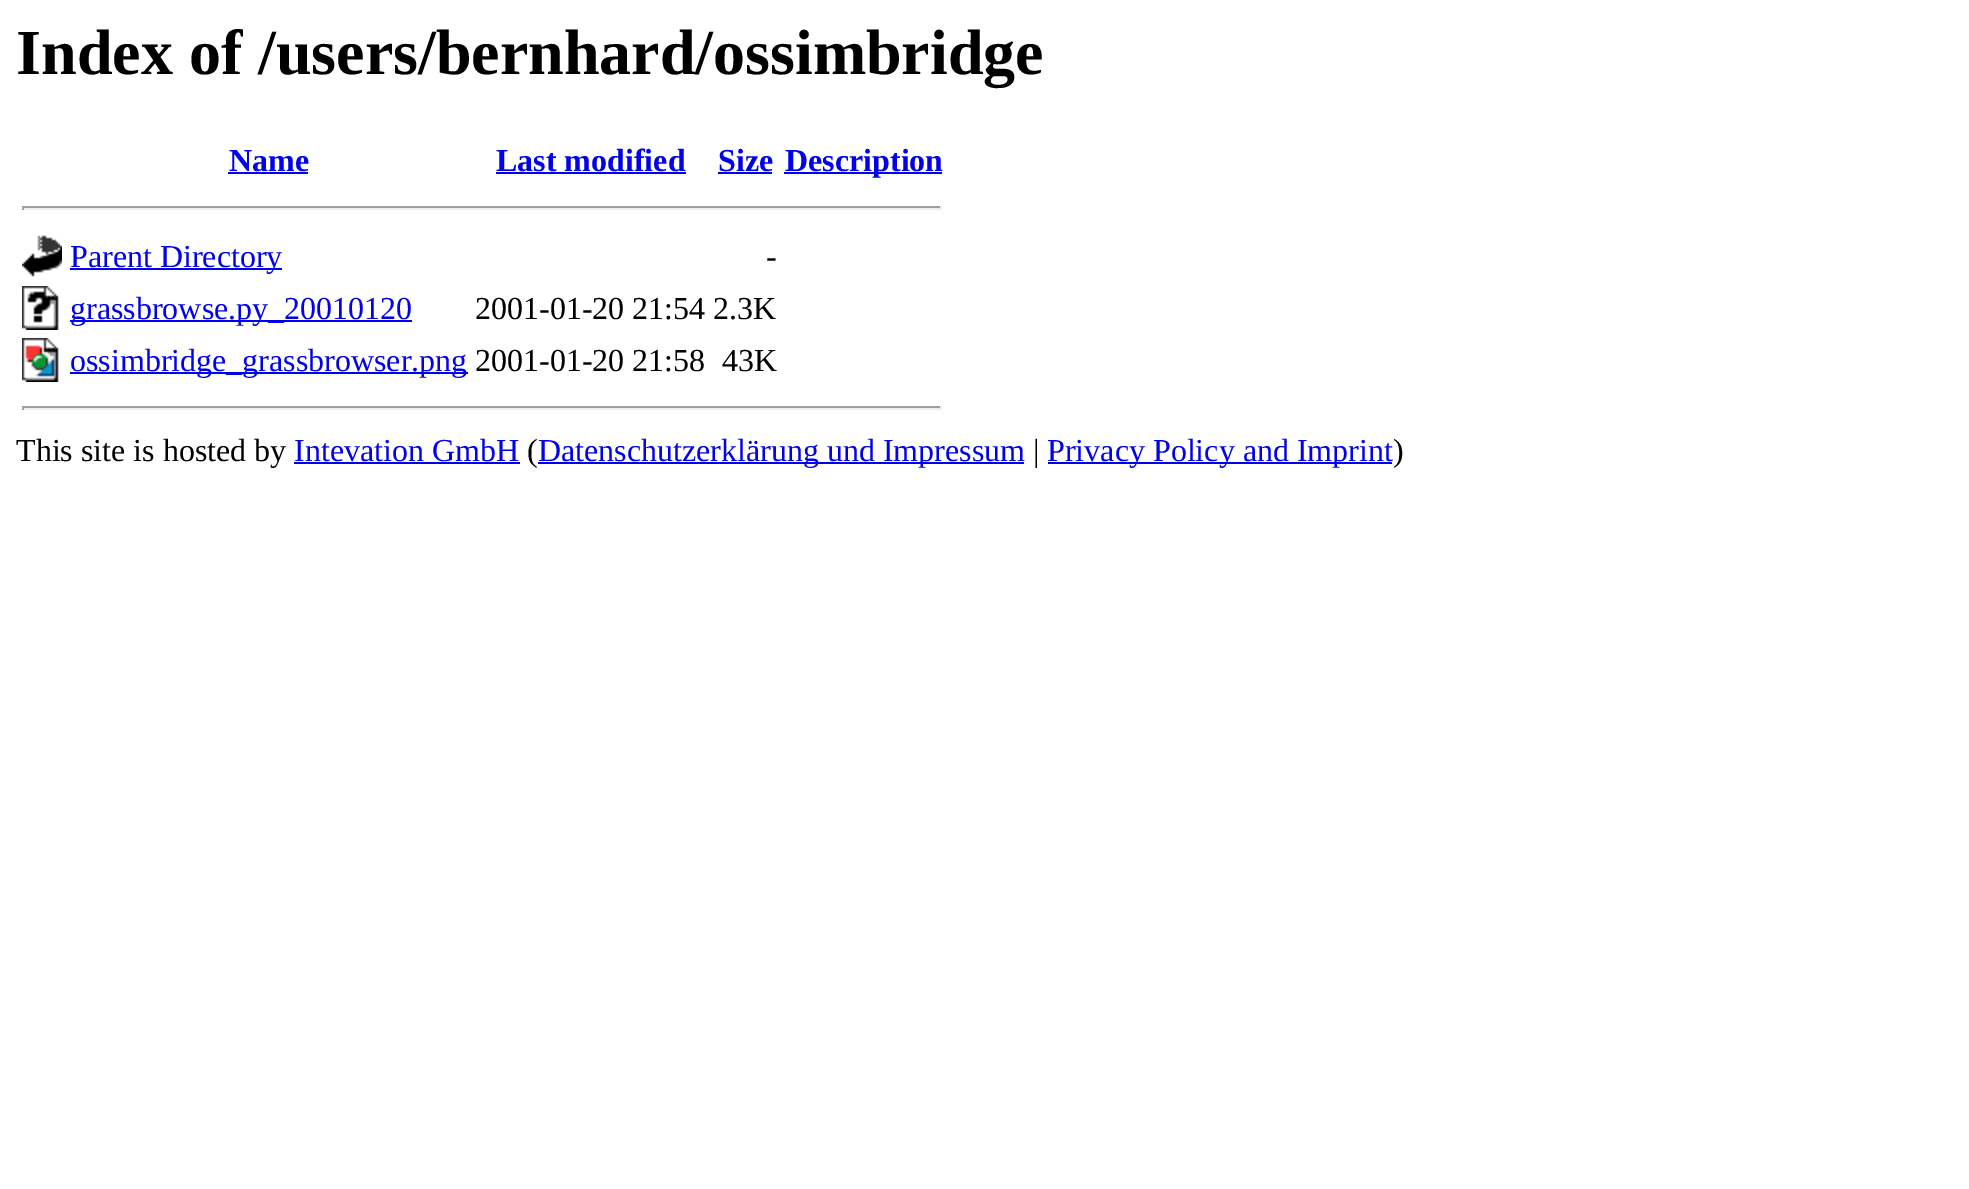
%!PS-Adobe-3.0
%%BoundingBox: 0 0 1969 1189
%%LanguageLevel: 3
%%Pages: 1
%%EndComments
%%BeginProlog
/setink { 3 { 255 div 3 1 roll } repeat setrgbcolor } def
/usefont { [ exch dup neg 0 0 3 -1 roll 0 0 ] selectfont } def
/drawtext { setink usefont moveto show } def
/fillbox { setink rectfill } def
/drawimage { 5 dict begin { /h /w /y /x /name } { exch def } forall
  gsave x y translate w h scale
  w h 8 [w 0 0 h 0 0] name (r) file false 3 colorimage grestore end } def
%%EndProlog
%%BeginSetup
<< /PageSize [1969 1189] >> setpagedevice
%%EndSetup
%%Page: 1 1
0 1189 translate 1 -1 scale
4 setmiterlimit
0 0 1969 1189 255 255 255 fillbox
(Index of /users/bernhard/ossimbridge) 16 74 /LiberationSerif-Bold 64 0 0 0 drawtext
(Name) 229 171 /LiberationSerif-Bold 32 0 0 238 drawtext
228 172 80 2 0 0 238 fillbox
(Last modified) 496 171 /LiberationSerif-Bold 32 0 0 238 drawtext
496 172 190 2 0 0 238 fillbox
(Size) 718 171 /LiberationSerif-Bold 32 0 0 238 drawtext
718 172 54 2 0 0 238 fillbox
784 172 158 2 0 0 238 fillbox
(Description) 785 171 /LiberationSerif-Bold 32 0 0 238 drawtext
22 206 920 2 159 159 159 fillbox
940 206 2 4 238 238 238 fillbox
22 208 920 2 238 238 238 fillbox
22 206 2 4 159 159 159 fillbox
(assets/img1.rgb) 22 235 40 42 drawimage
70 268 212 2 0 0 238 fillbox
(Parent Directory) 70 267 /LiberationSerif-Regular 32 0 0 238 drawtext
(-) 766 267 /LiberationSerif-Regular 32 0 0 0 drawtext
(assets/img2.rgb) 22 286 37 44 drawimage
70 320 342 2 0 0 238 fillbox
(grassbrowse.py_20010120) 70 319 /LiberationSerif-Regular 32 0 0 238 drawtext
(2001-01-20 21:54 2.3K) 475 319 /LiberationSerif-Regular 32 0 0 0 drawtext
(assets/img3.rgb) 22 338 37 44 drawimage
70 372 398 2 0 0 238 fillbox
(ossimbridge_grassbrowser.png) 70 371 /LiberationSerif-Regular 32 0 0 238 drawtext
(2001-01-20 21:58) 475 371 /LiberationSerif-Regular 32 0 0 0 drawtext
(43K) 722 371 /LiberationSerif-Regular 32 0 0 0 drawtext
22 406 920 2 159 159 159 fillbox
940 406 2 4 238 238 238 fillbox
22 408 920 2 238 238 238 fillbox
22 406 2 4 159 159 159 fillbox
(This site is hosted by) 16 461 /LiberationSerif-Regular 32 0 0 0 drawtext
(Intevation GmbH) 294 461 /LiberationSerif-Regular 32 0 0 238 drawtext
294 462 226 2 0 0 238 fillbox
(\() 527 461 /LiberationSerif-Regular 32 0 0 0 drawtext
538 462 486 2 0 0 238 fillbox
(Datenschutzerklärung und Impressum) 538 461 /LiberationSerif-Regular 32 0 0 238 drawtext
(|) 1033 461 /LiberationSerif-Regular 32 0 0 0 drawtext
1048 462 344 2 0 0 238 fillbox
(Privacy Policy and Imprint) 1047 461 /LiberationSerif-Regular 32 0 0 238 drawtext
(\)) 1393 461 /LiberationSerif-Regular 32 0 0 0 drawtext
showpage
%%EOF
